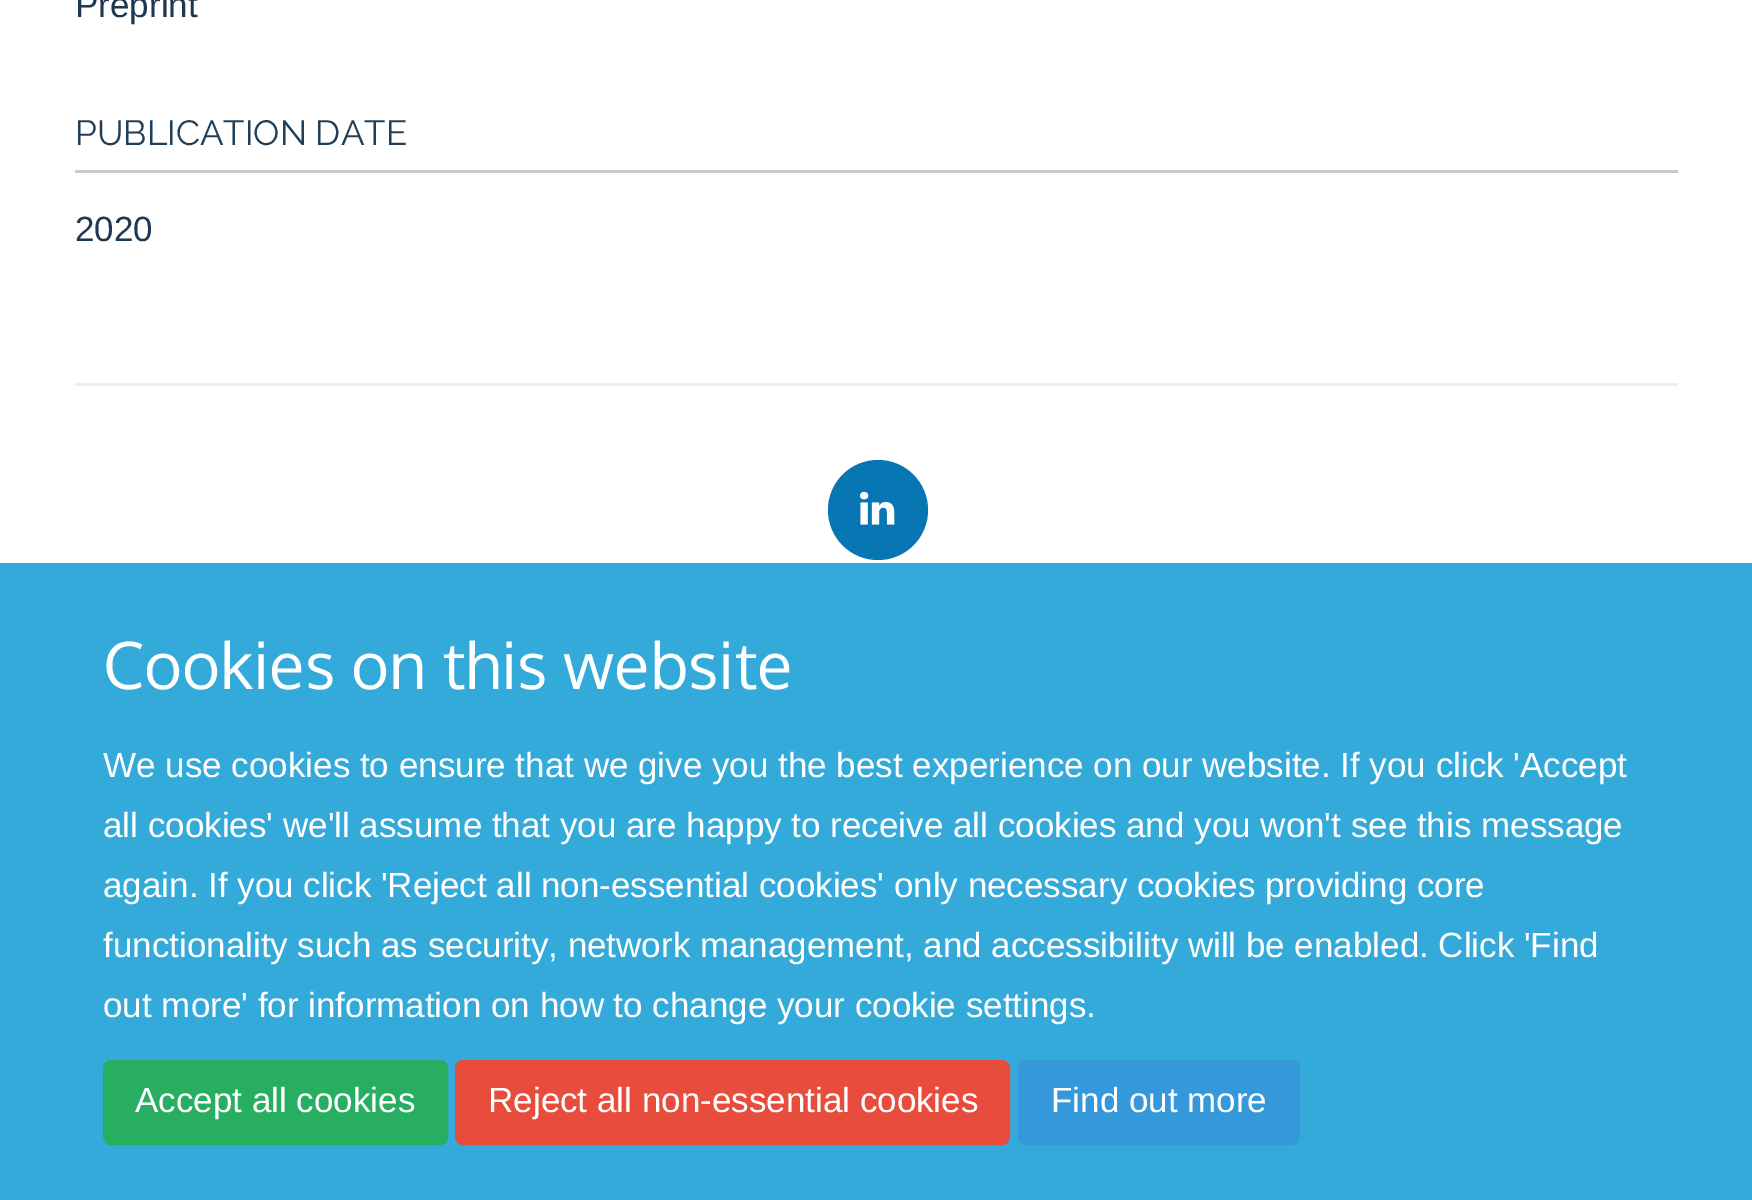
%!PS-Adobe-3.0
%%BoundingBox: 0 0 1752 1200
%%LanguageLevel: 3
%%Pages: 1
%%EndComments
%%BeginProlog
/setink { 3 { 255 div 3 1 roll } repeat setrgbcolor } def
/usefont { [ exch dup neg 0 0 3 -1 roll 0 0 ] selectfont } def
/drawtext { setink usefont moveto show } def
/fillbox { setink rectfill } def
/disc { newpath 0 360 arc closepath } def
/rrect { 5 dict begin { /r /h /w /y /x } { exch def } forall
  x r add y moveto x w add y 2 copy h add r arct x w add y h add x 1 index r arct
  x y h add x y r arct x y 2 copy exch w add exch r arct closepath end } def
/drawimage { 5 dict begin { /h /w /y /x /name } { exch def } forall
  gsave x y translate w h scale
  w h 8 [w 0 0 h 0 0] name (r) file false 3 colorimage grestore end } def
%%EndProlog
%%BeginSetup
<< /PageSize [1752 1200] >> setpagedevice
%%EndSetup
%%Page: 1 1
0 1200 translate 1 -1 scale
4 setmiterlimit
0 0 1752 1200 255 255 255 fillbox
(Preprint) 75 17 /LiberationSans-Regular 35 29 56 80 drawtext
75 170 1603 3 198 202 207 fillbox
(PUBLICATION DATE) 75 145 /Raleway-Thin 35 32 62 88 drawtext
(2020) 75 241 /LiberationSans-Regular 35 29 56 80 drawtext
75 383 1603 3 238 238 238 fillbox
9 118 180 setink
878 510 50 disc fill
(assets/img1.rgb) 860 491 35 34 drawimage
0 563 1752 637 52 170 219 fillbox
(Cookies on this website) 103 689 /Oxygen-Regular 65 255 255 255 drawtext
(We use cookies to ensure that we give you the best experience on our website. If you click 'Accept) 103 777 /LiberationSans-Regular 35 255 255 255 drawtext
(all cookies' we'll assume that you are happy to receive all cookies and you won't see this message) 103 837 /LiberationSans-Regular 35 255 255 255 drawtext
103 897 moveto -0.1 0 32 (again. If you click 'Reject all non-essential cookies' only necessary cookies providing core) widthshow
103 957 moveto -0.1 0 32 (functionality such as security, network management, and accessibility will be enabled. Click 'Find) widthshow
(out more' for information on how to change your cookie settings.) 103 1017 /LiberationSans-Regular 35 255 255 255 drawtext
39 174 96 setink
104.5 1061.5 342 82 6.5 rrect gsave fill grestore
3 setlinewidth
stroke
(Accept all cookies) 135 1112 /LiberationSans-Regular 35 255 255 255 drawtext
231 76 60 setink
456.5 1061.5 552 82 6.5 rrect gsave fill grestore
stroke
(Reject all non-essential cookies) 488 1112 /LiberationSans-Regular 35 255 255 255 drawtext
52 152 219 setink
1019.5 1061.5 279 82 6.5 rrect gsave fill grestore
stroke
(Find out more) 1051 1112 /LiberationSans-Regular 35 255 255 255 drawtext
showpage
%%EOF
